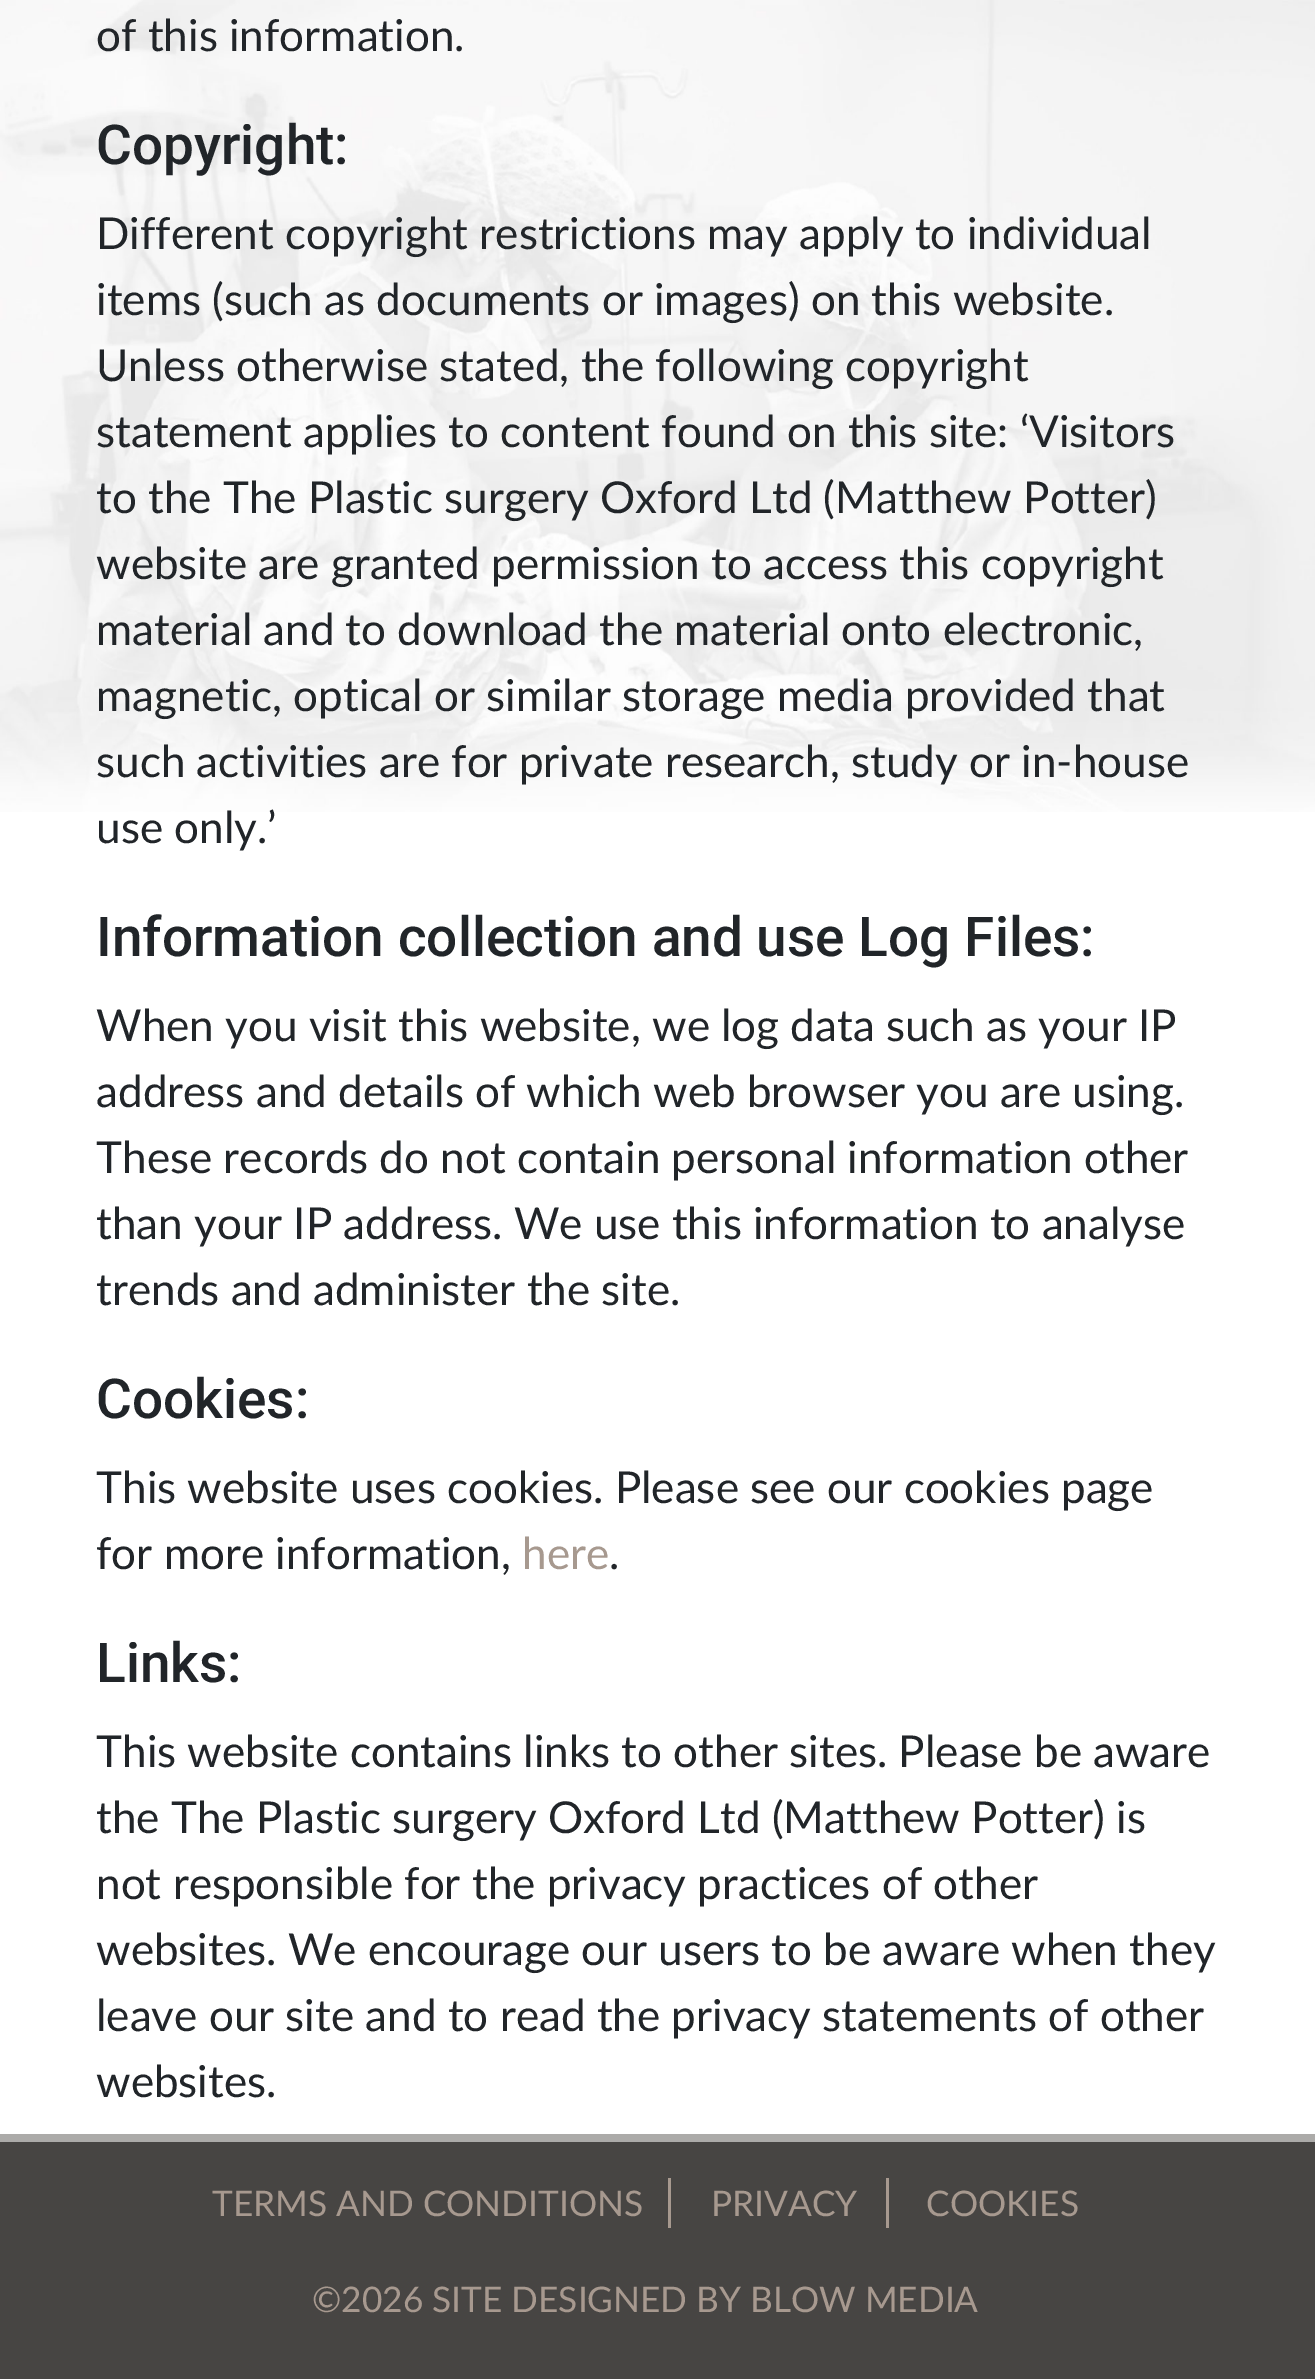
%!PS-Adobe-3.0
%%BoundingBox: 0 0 1315 2379
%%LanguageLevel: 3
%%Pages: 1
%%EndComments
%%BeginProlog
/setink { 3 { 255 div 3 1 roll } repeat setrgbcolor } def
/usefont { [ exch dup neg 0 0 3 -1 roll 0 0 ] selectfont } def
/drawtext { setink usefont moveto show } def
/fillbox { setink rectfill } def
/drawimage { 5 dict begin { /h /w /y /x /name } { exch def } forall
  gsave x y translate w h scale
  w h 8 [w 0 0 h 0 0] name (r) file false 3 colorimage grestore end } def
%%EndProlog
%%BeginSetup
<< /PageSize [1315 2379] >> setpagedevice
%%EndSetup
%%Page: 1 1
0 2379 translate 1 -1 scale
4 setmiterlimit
0 0 1315 2379 255 255 255 fillbox
(assets/img1.rgb) 0 0 1315 812 drawimage
(of this information.) 96 51 /Lato-Regular 44 33 37 41 drawtext
(Copyright:) 96 164 /Roboto-Medium 55 33 37 41 drawtext
(Different copyright restrictions may apply to individual) 96 249 /Lato-Regular 44 33 37 41 drawtext
(items \(such as documents or images\) on this website.) 96 315 /Lato-Regular 44 33 37 41 drawtext
(Unless otherwise stated, the following copyright) 96 381 /Lato-Regular 44 33 37 41 drawtext
(statement applies to content found on this site: ‘Visitors) 96 447 /Lato-Regular 44 33 37 41 drawtext
(to the The Plastic surgery Oxford Ltd \(Matthew Potter\)) 96 513 /Lato-Regular 44 33 37 41 drawtext
(website are granted permission to access this copyright) 96 579 /Lato-Regular 44 33 37 41 drawtext
(material and to download the material onto electronic,) 96 645 /Lato-Regular 44 33 37 41 drawtext
(magnetic, optical or similar storage media provided that) 96 711 /Lato-Regular 44 33 37 41 drawtext
(such activities are for private research, study or in-house) 96 777 /Lato-Regular 44 33 37 41 drawtext
(use only.’) 96 843 /Lato-Regular 44 33 37 41 drawtext
(Information collection and use Log Files:) 96 956 /Roboto-Medium 55 33 37 41 drawtext
(When you visit this website, we log data such as your IP) 96 1041 /Lato-Regular 44 33 37 41 drawtext
(address and details of which web browser you are using.) 96 1107 /Lato-Regular 44 33 37 41 drawtext
(These records do not contain personal information other) 96 1173 /Lato-Regular 44 33 37 41 drawtext
(than your IP address. We use this information to analyse) 96 1239 /Lato-Regular 44 33 37 41 drawtext
(trends and administer the site.) 96 1305 /Lato-Regular 44 33 37 41 drawtext
(Cookies:) 96 1418 /Roboto-Medium 55 33 37 41 drawtext
(This website uses cookies. Please see our cookies page) 96 1503 /Lato-Regular 44 33 37 41 drawtext
(for more information,) 96 1569 /Lato-Regular 44 33 37 41 drawtext
(here) 522 1569 /Lato-Regular 44 167 153 143 drawtext
(.) 609 1569 /Lato-Regular 44 33 37 41 drawtext
(Links:) 96 1682 /Roboto-Medium 55 33 37 41 drawtext
(This website contains links to other sites. Please be aware) 96 1767 /Lato-Regular 44 33 37 41 drawtext
(the The Plastic surgery Oxford Ltd \(Matthew Potter\) is) 96 1833 /Lato-Regular 44 33 37 41 drawtext
(not responsible for the privacy practices of other) 96 1899 /Lato-Regular 44 33 37 41 drawtext
(websites. We encourage our users to be aware when they) 96 1965 /Lato-Regular 44 33 37 41 drawtext
(leave our site and to read the privacy statements of other) 96 2031 /Lato-Regular 44 33 37 41 drawtext
(websites.) 96 2097 /Lato-Regular 44 33 37 41 drawtext
0 2142 1315 237 71 69 67 fillbox
0 2134 1315 8 172 171 169 fillbox
(TERMS AND CONDITIONS) 212 2216 /Lato-Regular 35.25 167 153 143 drawtext
668 2178 3 50 167 153 143 fillbox
(PRIVACY) 711 2216 /Lato-Regular 35.25 167 153 143 drawtext
886 2178 3 50 167 153 143 fillbox
(COOKIES) 926 2216 /Lato-Regular 35.25 167 153 143 drawtext
(©2026 SITE DESIGNED BY BLOW MEDIA) 312 2312 /Lato-Regular 35.25 167 153 143 drawtext
showpage
%%EOF
